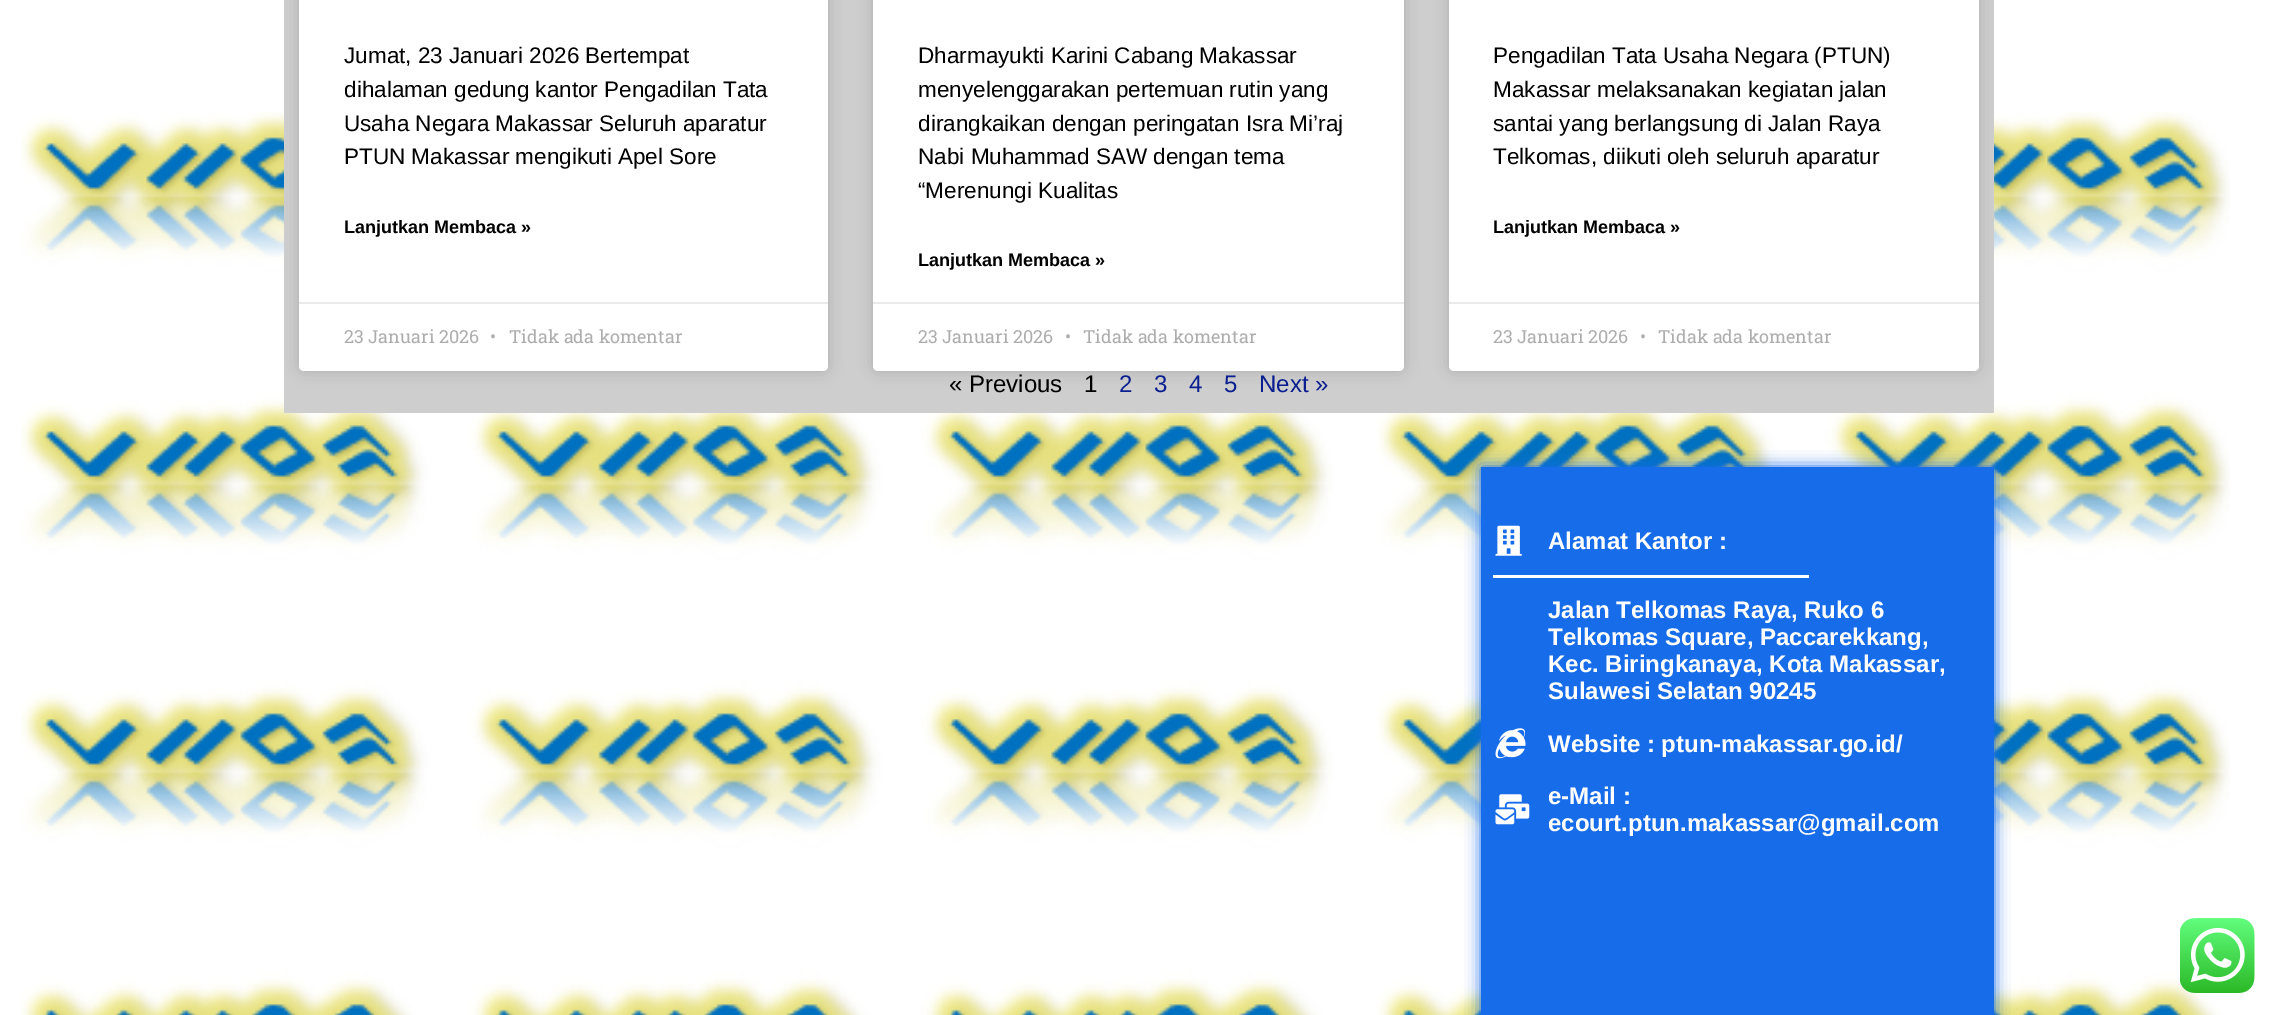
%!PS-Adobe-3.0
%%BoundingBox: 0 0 2276 1015
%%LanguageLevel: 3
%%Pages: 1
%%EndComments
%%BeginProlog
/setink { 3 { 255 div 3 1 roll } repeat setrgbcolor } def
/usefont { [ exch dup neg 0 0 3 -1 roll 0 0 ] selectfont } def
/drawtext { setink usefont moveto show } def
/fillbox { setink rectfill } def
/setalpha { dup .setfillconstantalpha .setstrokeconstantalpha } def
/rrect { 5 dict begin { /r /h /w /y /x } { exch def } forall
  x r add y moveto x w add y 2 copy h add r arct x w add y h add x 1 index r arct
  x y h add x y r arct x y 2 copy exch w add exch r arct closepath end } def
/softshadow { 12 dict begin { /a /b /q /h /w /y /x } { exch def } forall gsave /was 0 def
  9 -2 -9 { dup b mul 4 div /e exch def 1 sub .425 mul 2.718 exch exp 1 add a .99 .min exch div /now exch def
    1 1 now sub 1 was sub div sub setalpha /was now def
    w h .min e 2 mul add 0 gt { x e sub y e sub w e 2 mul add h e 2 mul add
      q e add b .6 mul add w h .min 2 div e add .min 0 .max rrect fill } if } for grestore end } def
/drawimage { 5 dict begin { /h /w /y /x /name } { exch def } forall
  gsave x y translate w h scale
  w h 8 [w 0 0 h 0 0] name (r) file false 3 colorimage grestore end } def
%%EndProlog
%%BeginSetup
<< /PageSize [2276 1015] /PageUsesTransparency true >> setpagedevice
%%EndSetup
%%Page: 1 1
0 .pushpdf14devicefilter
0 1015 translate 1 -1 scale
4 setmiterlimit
0 0 2276 1015 255 255 255 fillbox
(assets/img1.rgb) 21 111 2209 904 drawimage
284 0 1710 413 206 206 206 fillbox
0 0 0 setink
299 -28 529 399 5 7.5 0.15 softshadow
255 255 255 setink
299 -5 529 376 5 rrect fill
(Jumat, 23 Januari 2026 Bertempat) 344 63 /LiberationSans-Regular 22.5 0 0 0 drawtext
(dihalaman gedung kantor Pengadilan Tata) 344 97 /LiberationSans-Regular 22.5 0 0 0 drawtext
(Usaha Negara Makassar Seluruh aparatur) 344 131 /LiberationSans-Regular 22.5 0 0 0 drawtext
(PTUN Makassar mengikuti Apel Sore) 344 164 /LiberationSans-Regular 22.5 0 0 0 drawtext
(Lanjutkan Membaca ») 344 233 /LiberationSans-Bold 18 0 0 0 drawtext
299 302 529 2 234 234 234 fillbox
(23 Januari 2026) 344 343 /RobotoSlab-Regular 18 173 173 173 drawtext
(•) 490 343 /RobotoSlab-Regular 18 173 173 173 drawtext
(Tidak ada komentar) 509 343 /RobotoSlab-Regular 18 173 173 173 drawtext
0 0 0 setink
873 -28 531 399 5 7.5 0.15 softshadow
255 255 255 setink
873 -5 531 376 5 rrect fill
(Dharmayukti Karini Cabang Makassar) 918 63 /LiberationSans-Regular 22.5 0 0 0 drawtext
(menyelenggarakan pertemuan rutin yang) 918 97 /LiberationSans-Regular 22.5 0 0 0 drawtext
(dirangkaikan dengan peringatan Isra Mi’raj) 918 131 /LiberationSans-Regular 22.5 0 0 0 drawtext
(Nabi Muhammad SAW dengan tema) 918 164 /LiberationSans-Regular 22.5 0 0 0 drawtext
(“Merenungi Kualitas) 918 198 /LiberationSans-Regular 22.5 0 0 0 drawtext
(Lanjutkan Membaca ») 918 266 /LiberationSans-Bold 18 0 0 0 drawtext
873 302 531 2 234 234 234 fillbox
(23 Januari 2026) 918 343 /RobotoSlab-Regular 18 173 173 173 drawtext
(•) 1065 343 /RobotoSlab-Regular 18 173 173 173 drawtext
(Tidak ada komentar) 1083 343 /RobotoSlab-Regular 18 173 173 173 drawtext
0 0 0 setink
1449 -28 530 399 5 7.5 0.15 softshadow
255 255 255 setink
1449 -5 530 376 5 rrect fill
(Pengadilan Tata Usaha Negara \(PTUN\)) 1493 63 /LiberationSans-Regular 22.5 0 0 0 drawtext
(Makassar melaksanakan kegiatan jalan) 1493 97 /LiberationSans-Regular 22.5 0 0 0 drawtext
(santai yang berlangsung di Jalan Raya) 1493 131 /LiberationSans-Regular 22.5 0 0 0 drawtext
(Telkomas, diikuti oleh seluruh aparatur) 1493 164 /LiberationSans-Regular 22.5 0 0 0 drawtext
(Lanjutkan Membaca ») 1493 233 /LiberationSans-Bold 18 0 0 0 drawtext
1449 302 530 2 234 234 234 fillbox
(23 Januari 2026) 1493 343 /RobotoSlab-Regular 18 173 173 173 drawtext
(•) 1640 343 /RobotoSlab-Regular 18 173 173 173 drawtext
(Tidak ada komentar) 1658 343 /RobotoSlab-Regular 18 173 173 173 drawtext
(« Previous) 949 392 /LiberationSans-Regular 24 0 0 0 drawtext
(1) 1084 392 /LiberationSans-Regular 24 0 0 0 drawtext
(2) 1119 392 /LiberationSans-Regular 24 10 30 143 drawtext
(3) 1154 392 /LiberationSans-Regular 24 10 30 143 drawtext
(4) 1189 392 /LiberationSans-Regular 24 10 30 143 drawtext
(5) 1224 392 /LiberationSans-Regular 24 10 30 143 drawtext
(Next ») 1259 392 /LiberationSans-Regular 24 10 30 143 drawtext
23 108 234 setink
1481 467 513 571 0 7.5 1 softshadow
1481 467 513 548 23 108 234 fillbox
(assets/img2.rgb) 1495 525 27 31 drawimage
(Alamat Kantor :) 1548 549 /LiberationSans-Bold 24 255 255 255 drawtext
1493 575 316 3 255 255 255 fillbox
(Jalan Telkomas Raya, Ruko 6) 1548 618 /LiberationSans-Bold 24 255 255 255 drawtext
(Telkomas Square, Paccarekkang,) 1548 645 /LiberationSans-Bold 24 255 255 255 drawtext
(Kec. Biringkanaya, Kota Makassar,) 1548 672 /LiberationSans-Bold 24 255 255 255 drawtext
(Sulawesi Selatan 90245) 1548 699 /LiberationSans-Bold 24 255 255 255 drawtext
(assets/img3.rgb) 1495 728 31 31 drawimage
(Website : ptun-makassar.go.id/) 1548 752 /LiberationSans-Bold 24 255 255 255 drawtext
(assets/img4.rgb) 1495 794 35 31 drawimage
(e-Mail :) 1548 804 /LiberationSans-Bold 24 255 255 255 drawtext
(ecourt.ptun.makassar@gmail.com) 1548 831 /LiberationSans-Bold 24 255 255 255 drawtext
(assets/img5.rgb) 2180 918 75 75 drawimage
.poppdf14devicefilter showpage
%%EOF
